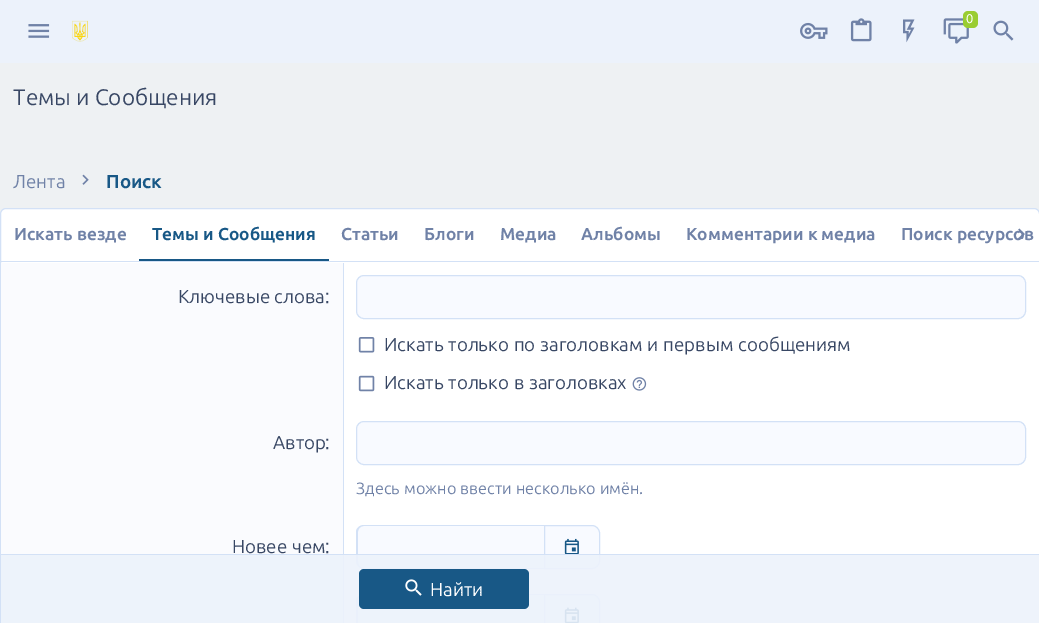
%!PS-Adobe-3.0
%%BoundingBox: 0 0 1039 623
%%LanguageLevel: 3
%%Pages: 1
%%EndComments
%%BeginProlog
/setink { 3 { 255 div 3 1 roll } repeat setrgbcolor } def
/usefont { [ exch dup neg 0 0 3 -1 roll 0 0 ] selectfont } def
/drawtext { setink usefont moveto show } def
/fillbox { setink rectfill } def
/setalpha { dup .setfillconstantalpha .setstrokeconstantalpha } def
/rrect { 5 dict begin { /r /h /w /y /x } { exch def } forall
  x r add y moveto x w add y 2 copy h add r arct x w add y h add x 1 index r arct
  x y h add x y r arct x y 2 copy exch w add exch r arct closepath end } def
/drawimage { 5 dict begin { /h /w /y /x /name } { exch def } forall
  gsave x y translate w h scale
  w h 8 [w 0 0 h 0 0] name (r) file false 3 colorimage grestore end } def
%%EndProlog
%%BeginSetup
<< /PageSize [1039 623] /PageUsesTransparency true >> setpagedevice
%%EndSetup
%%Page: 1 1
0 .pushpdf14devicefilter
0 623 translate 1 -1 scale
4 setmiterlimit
0 0 1039 623 238 241 243 fillbox
0 0 1039 63 236 242 251 fillbox
(assets/img1.rgb) 800 22 28 17 drawimage
(assets/img2.rgb) 850 18 22 24 drawimage
(assets/img3.rgb) 903 19 12 24 drawimage
(assets/img4.rgb) 943 18 26 26 drawimage
154 205 50 setink
963 11 15 17 5 rrect fill
(0) 966 23 /Oxygen-Regular 12 255 255 255 drawtext
(assets/img5.rgb) 993 20 21 21 drawimage
(assets/img6.rgb) 28 24 22 14 drawimage
(assets/img7.rgb) 72 20 16 22 drawimage
(Темы и Сообщения) 13 105 /Ubuntu-Regular 22.5 56 71 100 drawtext
(Лента) 13 188 /Ubuntu-Regular 18.75 112 130 167 drawtext
(assets/img8.rgb) 82 174 7 11 drawimage
(Поиск) 106 188 /Ubuntu-Bold 18.75 24 88 134 drawtext
255 255 255 setink
0.5 208.5 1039 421 5.5 rrect gsave fill grestore
211 225 246 setink
stroke
1 261 1038 1 211 225 246 fillbox
(Искать везде) 14 240 /Ubuntu-Bold 17.25 112 130 167 drawtext
139 259 190 2 24 88 134 fillbox
(Темы и Сообщения) 152 240 /Ubuntu-Bold 17.25 24 88 134 drawtext
(Статьи) 341 240 /Ubuntu-Bold 17.25 112 130 167 drawtext
(Блоги) 424 240 /Ubuntu-Bold 17.25 112 130 167 drawtext
(Медиа) 500 240 /Ubuntu-Bold 17.25 112 130 167 drawtext
(Альбомы) 581 240 /Ubuntu-Bold 17.25 112 130 167 drawtext
(Комментарии к медиа) 686 240 /Ubuntu-Bold 17.25 112 130 167 drawtext
(Поиск ресурсов) 901 240 /Ubuntu-Bold 17.25 112 130 167 drawtext
(assets/img9.rgb) 1018 228 7 11 drawimage
1 263 342 360 250 251 254 fillbox
343 263 1 360 211 225 246 fillbox
(Ключевые слова) 178 303 /Ubuntu-Regular 18.75 56 71 100 drawtext
(:) 325 303 /Oxygen-Regular 18.75 56 71 100 drawtext
248 250 255 setink
356.5 275.5 669 43 7.5 rrect gsave fill grestore
211 225 246 setink
stroke
(assets/img10.rgb) 358 337 17 16 drawimage
/Ubuntu-Regular 18.75 usefont
56 71 100 setink
384 351 moveto 0.5 0 32 (Искать только по заголовкам и первым сообщениям) widthshow
(assets/img11.rgb) 358 375 17 17 drawimage
384 389 moveto 0.5 0 32 (Искать только в заголовках) widthshow
(assets/img12.rgb) 632 377 15 14 drawimage
(Автор) 273 449 /Ubuntu-Regular 18.75 56 71 100 drawtext
(:) 325 449 /Oxygen-Regular 18.75 56 71 100 drawtext
248 250 255 setink
356.5 421.5 669 43 7.5 rrect gsave fill grestore
211 225 246 setink
stroke
/Ubuntu-Regular 16.25 usefont
112 130 167 setink
356 494 moveto 0.5 0 32 (Здесь можно ввести несколько имён) widthshow
(.) 639 494 /Oxygen-Regular 16.25 112 130 167 drawtext
/Ubuntu-Regular 18.75 usefont
56 71 100 setink
232 553 moveto 0.5 0 32 (Новее чем) widthshow
(:) 325 553 /Oxygen-Regular 18.75 56 71 100 drawtext
248 250 255 setink
364 525 moveto 544 525 lineto 544 569 lineto 364 569 lineto 359.5 569 356 565.5 356 561 curveto 356 533 lineto 356 528.5 359.5 525 364 525 curveto closepath fill
211 225 246 setink
364 525 moveto 544 525 lineto 544 569 lineto 364 569 lineto 360 569 356 565 356 561 curveto 356 532 lineto 356 528 360 525 364 525 curveto closepath 364 526 moveto 544 526 lineto 544 568 lineto 364 568 lineto 360 568 358 565 358 561 curveto 358 532 lineto 358 529 360 526 364 526 curveto closepath eofill
248 250 255 setink
544.5 525.5 moveto 592 525.5 lineto 596 525.5 599.5 529 599.5 533 curveto 599.5 561 lineto 599.5 565 596 568.5 592 568.5 curveto 544.5 568.5 lineto closepath gsave fill grestore
211 225 246 setink
stroke
(assets/img13.rgb) 564 538 15 16 drawimage
248 250 255 setink
364 594 moveto 544 594 lineto 544 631 lineto 364 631 lineto 359.5 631 356 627.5 356 623 curveto 356 602 lineto 356 597.5 359.5 594 364 594 curveto closepath fill
211 225 246 setink
364 594 moveto 544 594 lineto 544 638 lineto 364 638 lineto 360 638 356 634 356 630 curveto 356 601 lineto 356 597 360 594 364 594 curveto closepath 364 595 moveto 544 595 lineto 544 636 lineto 364 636 lineto 360 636 358 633 358 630 curveto 358 601 lineto 358 598 360 595 364 595 curveto closepath eofill
248 250 255 setink
544.5 594.5 moveto 592 594.5 lineto 596 594.5 599.5 598 599.5 602 curveto 599.5 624 lineto 599.5 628 596 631.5 592 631.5 curveto 544.5 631.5 lineto closepath gsave fill grestore
211 225 246 setink
stroke
(assets/img14.rgb) 564 607 15 16 drawimage
0.9 setalpha
1 555 1038 68 236 242 251 fillbox
1 setalpha
1 554 1038 1 211 225 246 fillbox
24 88 134 setink
359 569 170 40 5 rrect fill
(assets/img15.rgb) 405 579 17 17 drawimage
(Найти) 430 596 /Ubuntu-Regular 18.75 255 255 255 drawtext
.poppdf14devicefilter showpage
%%EOF
